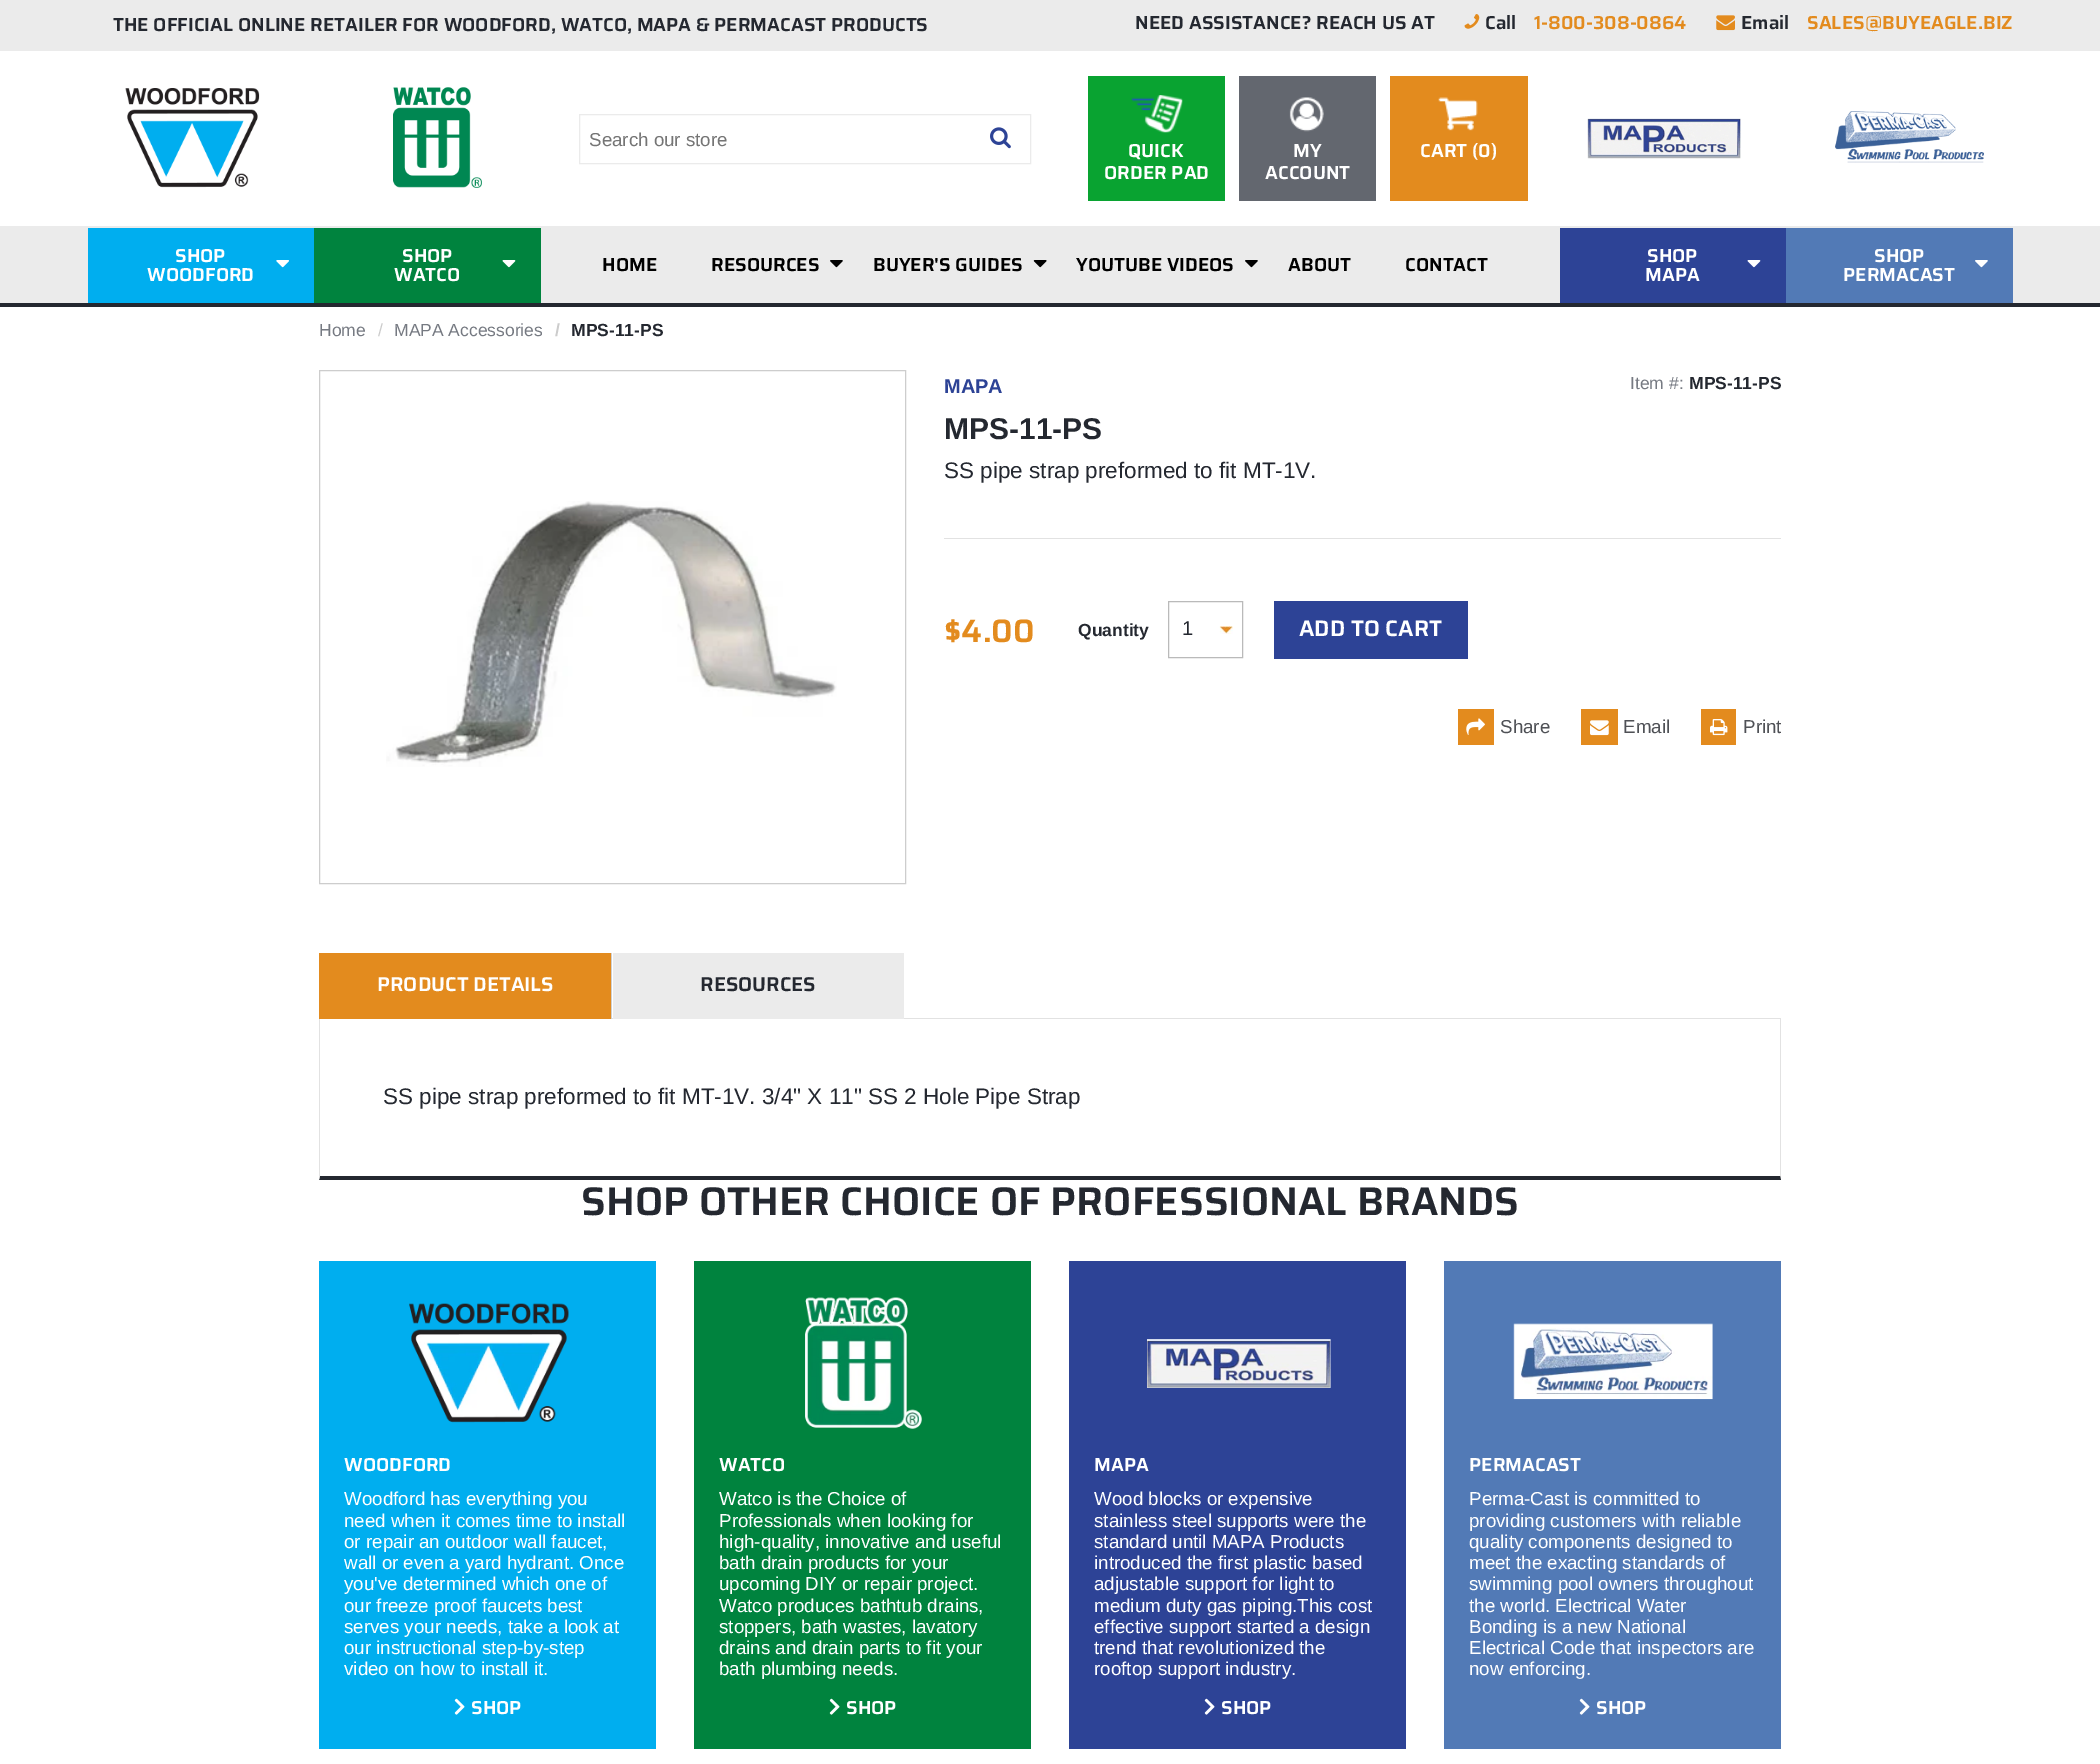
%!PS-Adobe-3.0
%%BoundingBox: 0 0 2100 1764
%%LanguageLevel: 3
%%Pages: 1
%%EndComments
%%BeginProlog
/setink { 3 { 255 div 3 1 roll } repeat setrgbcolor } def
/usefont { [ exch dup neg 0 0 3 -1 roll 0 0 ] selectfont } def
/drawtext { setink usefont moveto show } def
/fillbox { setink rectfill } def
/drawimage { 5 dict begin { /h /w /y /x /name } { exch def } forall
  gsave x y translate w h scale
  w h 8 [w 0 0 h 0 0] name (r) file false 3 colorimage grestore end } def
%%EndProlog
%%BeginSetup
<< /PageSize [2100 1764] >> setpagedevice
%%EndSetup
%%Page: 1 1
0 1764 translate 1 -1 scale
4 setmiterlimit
0 0 2100 1764 255 255 255 fillbox
0 0 2100 51 235 235 235 fillbox
(THE OFFICIAL ONLINE RETAILER FOR WOODFORD, WATCO, MAPA & PERMACAST PRODUCTS) 113 31 /Saira-SemiBold 18.75 36 40 48 drawtext
(NEED ASSISTANCE? REACH US AT) 1135 29 /Saira-SemiBold 18.75 36 40 48 drawtext
(assets/img1.rgb) 1464 14 16 15 drawimage
(Call) 1485 29 /Saira-SemiBold 18.75 36 40 48 drawtext
(1-800-308-0864) 1534 29 /Saira-SemiBold 18.75 227 139 30 drawtext
(assets/img2.rgb) 1716 15 19 16 drawimage
(Email) 1741 29 /Saira-SemiBold 18.75 36 40 48 drawtext
(SALES@BUYEAGLE.BIZ) 1807 29 /Saira-SemiBold 18.75 227 139 30 drawtext
(assets/img3.rgb) 125 88 135 100 drawimage
(assets/img4.rgb) 393 87 89 101 drawimage
235 235 235 setink
579.5 114.5 451 49 rectstroke
(Search our store) 589 146 /LiberationSans-Regular 18.75 117 117 117 drawtext
(assets/img5.rgb) 990 127 21 22 drawimage
1088 76 137 125 9 163 49 fillbox
(assets/img6.rgb) 1131 95 52 38 drawimage
(QUICK) 1128 157 /Saira-SemiBold 18.75 255 255 255 drawtext
(ORDER PAD) 1104 179 /Saira-SemiBold 18.75 255 255 255 drawtext
1239 76 137 125 99 103 111 fillbox
(assets/img7.rgb) 1289 97 35 35 drawimage
(MY) 1293 157 /Saira-SemiBold 18.75 255 255 255 drawtext
(ACCOUNT) 1265 179 /Saira-SemiBold 18.75 255 255 255 drawtext
1390 76 138 125 227 139 30 fillbox
(assets/img8.rgb) 1438 97 40 34 drawimage
(CART \(0\)) 1420 157 /Saira-SemiBold 18.75 255 255 255 drawtext
(assets/img9.rgb) 1587 118 154 41 drawimage
(assets/img10.rgb) 1835 111 149 52 drawimage
0 226 2100 77 235 235 235 fillbox
0 303 2100 4 36 40 48 fillbox
88 228 226 75 0 174 239 fillbox
(SHOP) 175 262 /Saira-SemiBold 18.75 255 255 255 drawtext
(WOODFORD) 147 281 /Saira-SemiBold 18.75 255 255 255 drawtext
(assets/img11.rgb) 276 260 14 8 drawimage
314 228 227 75 0 131 62 fillbox
(SHOP) 402 262 /Saira-SemiBold 18.75 255 255 255 drawtext
(WATCO) 394 281 /Saira-SemiBold 18.75 255 255 255 drawtext
(assets/img12.rgb) 502 260 14 8 drawimage
(HOME) 602 271 /Saira-SemiBold 18.75 0 0 0 drawtext
(RESOURCES) 711 271 /Saira-SemiBold 18.75 0 0 0 drawtext
(assets/img13.rgb) 830 260 13 8 drawimage
(BUYER'S GUIDES) 873 271 /Saira-SemiBold 18.75 0 0 0 drawtext
(assets/img14.rgb) 1033 260 14 8 drawimage
(YOUTUBE VIDEOS) 1076 271 /Saira-SemiBold 18.75 0 0 0 drawtext
(assets/img13.rgb) 1245 260 13 8 drawimage
(ABOUT) 1288 271 /Saira-SemiBold 18.75 0 0 0 drawtext
(CONTACT) 1405 271 /Saira-SemiBold 18.75 0 0 0 drawtext
1560 228 226 75 45 67 150 fillbox
(SHOP) 1647 262 /Saira-SemiBold 18.75 255 255 255 drawtext
(MAPA) 1645 281 /Saira-SemiBold 18.75 255 255 255 drawtext
(assets/img15.rgb) 1747 260 14 8 drawimage
1786 228 227 75 82 122 182 fillbox
(SHOP) 1874 262 /Saira-SemiBold 18.75 255 255 255 drawtext
(PERMACAST) 1843 281 /Saira-SemiBold 18.75 255 255 255 drawtext
(assets/img16.rgb) 1975 260 13 8 drawimage
(Home) 319 336 /LiberationSans-Regular 17.5 118 122 130 drawtext
(/) 378 336 /LiberationSans-Regular 17.5 204 204 204 drawtext
(MAPA Accessories) 394 336 /LiberationSans-Regular 17.5 118 122 130 drawtext
(/) 555 336 /LiberationSans-Bold 17.5 204 204 204 drawtext
(MPS-11-PS) 571 336 /LiberationSans-Bold 17.5 36 40 48 drawtext
205 205 205 setink
319.5 370.5 586 513 rectstroke
(assets/img17.rgb) 386 501 451 266 drawimage
(MAPA) 944 393 /LiberationSans-Bold 20 45 67 150 drawtext
(Item #:) 1630 389 /LiberationSans-Regular 17.5 118 122 130 drawtext
(MPS-11-PS) 1689 389 /LiberationSans-Bold 17.5 36 40 48 drawtext
(MPS-11-PS) 944 439 /LiberationSans-Bold 30 36 40 48 drawtext
(SS pipe strap preformed to fit MT-1V.) 944 478 /LiberationSans-Regular 22.5 36 40 48 drawtext
944 538 837 1 226 226 226 fillbox
($4.00) 944 642 /Saira-SemiBold 32.5 227 139 30 drawtext
(Quantity) 1078 636 /LiberationSans-Bold 17.5 36 40 48 drawtext
(assets/img18.rgb) 1219 626 14 8 drawimage
186 186 186 setink
1168.5 601.5 74 56 rectstroke
(1) 1182 635 /LiberationSans-Regular 20 36 40 48 drawtext
1274 601 194 58 45 67 150 fillbox
(ADD TO CART) 1299 636 /Saira-SemiBold 22.5 255 255 255 drawtext
1458 709 36 36 227 139 30 fillbox
(assets/img19.rgb) 1466 718 19 17 drawimage
(Share) 1500 733 /LiberationSans-Regular 18.75 79 81 86 drawtext
1581 709 37 36 227 139 30 fillbox
(assets/img20.rgb) 1590 720 19 16 drawimage
(Email) 1623 733 /LiberationSans-Regular 18.75 79 81 86 drawtext
1701 709 35 36 227 139 30 fillbox
(assets/img21.rgb) 1710 719 18 17 drawimage
(Print) 1743 733 /LiberationSans-Regular 18.75 79 81 86 drawtext
612 1018 1169 1 226 226 226 fillbox
319 953 292 66 227 139 30 fillbox
(PRODUCT DETAILS) 377 991 /Saira-SemiBold 20 255 255 255 drawtext
611 953 1 66 207 207 207 fillbox
613 953 291 66 235 235 235 fillbox
(RESOURCES) 700 991 /Saira-SemiBold 20 36 40 48 drawtext
226 226 226 setink
1781 1019 moveto 1781 1180 lineto 1780 1176 lineto 1780 1019 lineto closepath fill
36 40 48 setink
1781 1180 moveto 319 1180 lineto 320 1176 lineto 1780 1176 lineto closepath fill
226 226 226 setink
319 1180 moveto 319 1019 lineto 320 1019 lineto 320 1176 lineto closepath fill
(SS pipe strap preformed to fit MT-1V. 3/4" X 11" SS 2 Hole Pipe Strap) 383 1104 /LiberationSans-Regular 22.5 36 40 48 drawtext
(SHOP OTHER CHOICE OF PROFESSIONAL BRANDS) 581 1215 /Saira-SemiBold 40 36 40 48 drawtext
319 1261 337 488 0 174 239 fillbox
(assets/img22.rgb) 409 1303 160 120 drawimage
(WOODFORD) 344 1471 /Saira-SemiBold 18.75 255 255 255 drawtext
(Woodford has everything you) 344 1505 /LiberationSans-Regular 18.75 255 255 255 drawtext
(need when it comes time to install) 344 1527 /LiberationSans-Regular 18.75 255 255 255 drawtext
(or repair an outdoor wall faucet,) 344 1548 /LiberationSans-Regular 18.75 255 255 255 drawtext
(wall or even a yard hydrant. Once) 344 1569 /LiberationSans-Regular 18.75 255 255 255 drawtext
(you've determined which one of) 344 1590 /LiberationSans-Regular 18.75 255 255 255 drawtext
(our freeze proof faucets best) 344 1612 /LiberationSans-Regular 18.75 255 255 255 drawtext
(serves your needs, take a look at) 344 1633 /LiberationSans-Regular 18.75 255 255 255 drawtext
(our instructional step-by-step) 344 1654 /LiberationSans-Regular 18.75 255 255 255 drawtext
(video on how to install it.) 344 1675 /LiberationSans-Regular 18.75 255 255 255 drawtext
(assets/img23.rgb) 454 1698 11 17 drawimage
(SHOP) 471 1714 /Saira-SemiBold 18.75 255 255 255 drawtext
694 1261 337 488 0 131 62 fillbox
(assets/img24.rgb) 805 1297 117 132 drawimage
(WATCO) 719 1471 /Saira-SemiBold 18.75 255 255 255 drawtext
(Watco is the Choice of) 719 1505 /LiberationSans-Regular 18.75 255 255 255 drawtext
(Professionals when looking for) 719 1527 /LiberationSans-Regular 18.75 255 255 255 drawtext
(high-quality, innovative and useful) 719 1548 /LiberationSans-Regular 18.75 255 255 255 drawtext
(bath drain products for your) 719 1569 /LiberationSans-Regular 18.75 255 255 255 drawtext
(upcoming DIY or repair project.) 719 1590 /LiberationSans-Regular 18.75 255 255 255 drawtext
(Watco produces bathtub drains,) 719 1612 /LiberationSans-Regular 18.75 255 255 255 drawtext
(stoppers, bath wastes, lavatory) 719 1633 /LiberationSans-Regular 18.75 255 255 255 drawtext
(drains and drain parts to fit your) 719 1654 /LiberationSans-Regular 18.75 255 255 255 drawtext
(bath plumbing needs.) 719 1675 /LiberationSans-Regular 18.75 255 255 255 drawtext
(assets/img25.rgb) 829 1698 11 17 drawimage
(SHOP) 846 1714 /Saira-SemiBold 18.75 255 255 255 drawtext
1069 1261 337 488 45 67 150 fillbox
(assets/img26.rgb) 1147 1339 184 49 drawimage
(MAPA) 1094 1471 /Saira-SemiBold 18.75 255 255 255 drawtext
(Wood blocks or expensive) 1094 1505 /LiberationSans-Regular 18.75 255 255 255 drawtext
(stainless steel supports were the) 1094 1527 /LiberationSans-Regular 18.75 255 255 255 drawtext
(standard until MAPA Products) 1094 1548 /LiberationSans-Regular 18.75 255 255 255 drawtext
(introduced the first plastic based) 1094 1569 /LiberationSans-Regular 18.75 255 255 255 drawtext
(adjustable support for light to) 1094 1590 /LiberationSans-Regular 18.75 255 255 255 drawtext
(medium duty gas piping.This cost) 1094 1612 /LiberationSans-Regular 18.75 255 255 255 drawtext
(effective support started a design) 1094 1633 /LiberationSans-Regular 18.75 255 255 255 drawtext
(trend that revolutionized the) 1094 1654 /LiberationSans-Regular 18.75 255 255 255 drawtext
(rooftop support industry.) 1094 1675 /LiberationSans-Regular 18.75 255 255 255 drawtext
(assets/img27.rgb) 1204 1698 11 17 drawimage
(SHOP) 1221 1714 /Saira-SemiBold 18.75 255 255 255 drawtext
1444 1261 337 488 82 122 182 fillbox
(assets/img28.rgb) 1513 1323 200 77 drawimage
(PERMACAST) 1469 1471 /Saira-SemiBold 18.75 255 255 255 drawtext
(Perma-Cast is committed to) 1469 1505 /LiberationSans-Regular 18.75 255 255 255 drawtext
(providing customers with reliable) 1469 1527 /LiberationSans-Regular 18.75 255 255 255 drawtext
(quality components designed to) 1469 1548 /LiberationSans-Regular 18.75 255 255 255 drawtext
(meet the exacting standards of) 1469 1569 /LiberationSans-Regular 18.75 255 255 255 drawtext
(swimming pool owners throughout) 1469 1590 /LiberationSans-Regular 18.75 255 255 255 drawtext
(the world. Electrical Water) 1469 1612 /LiberationSans-Regular 18.75 255 255 255 drawtext
(Bonding is a new National) 1469 1633 /LiberationSans-Regular 18.75 255 255 255 drawtext
(Electrical Code that inspectors are) 1469 1654 /LiberationSans-Regular 18.75 255 255 255 drawtext
(now enforcing.) 1469 1675 /LiberationSans-Regular 18.75 255 255 255 drawtext
(assets/img29.rgb) 1579 1698 11 17 drawimage
(SHOP) 1596 1714 /Saira-SemiBold 18.75 255 255 255 drawtext
showpage
%%EOF
